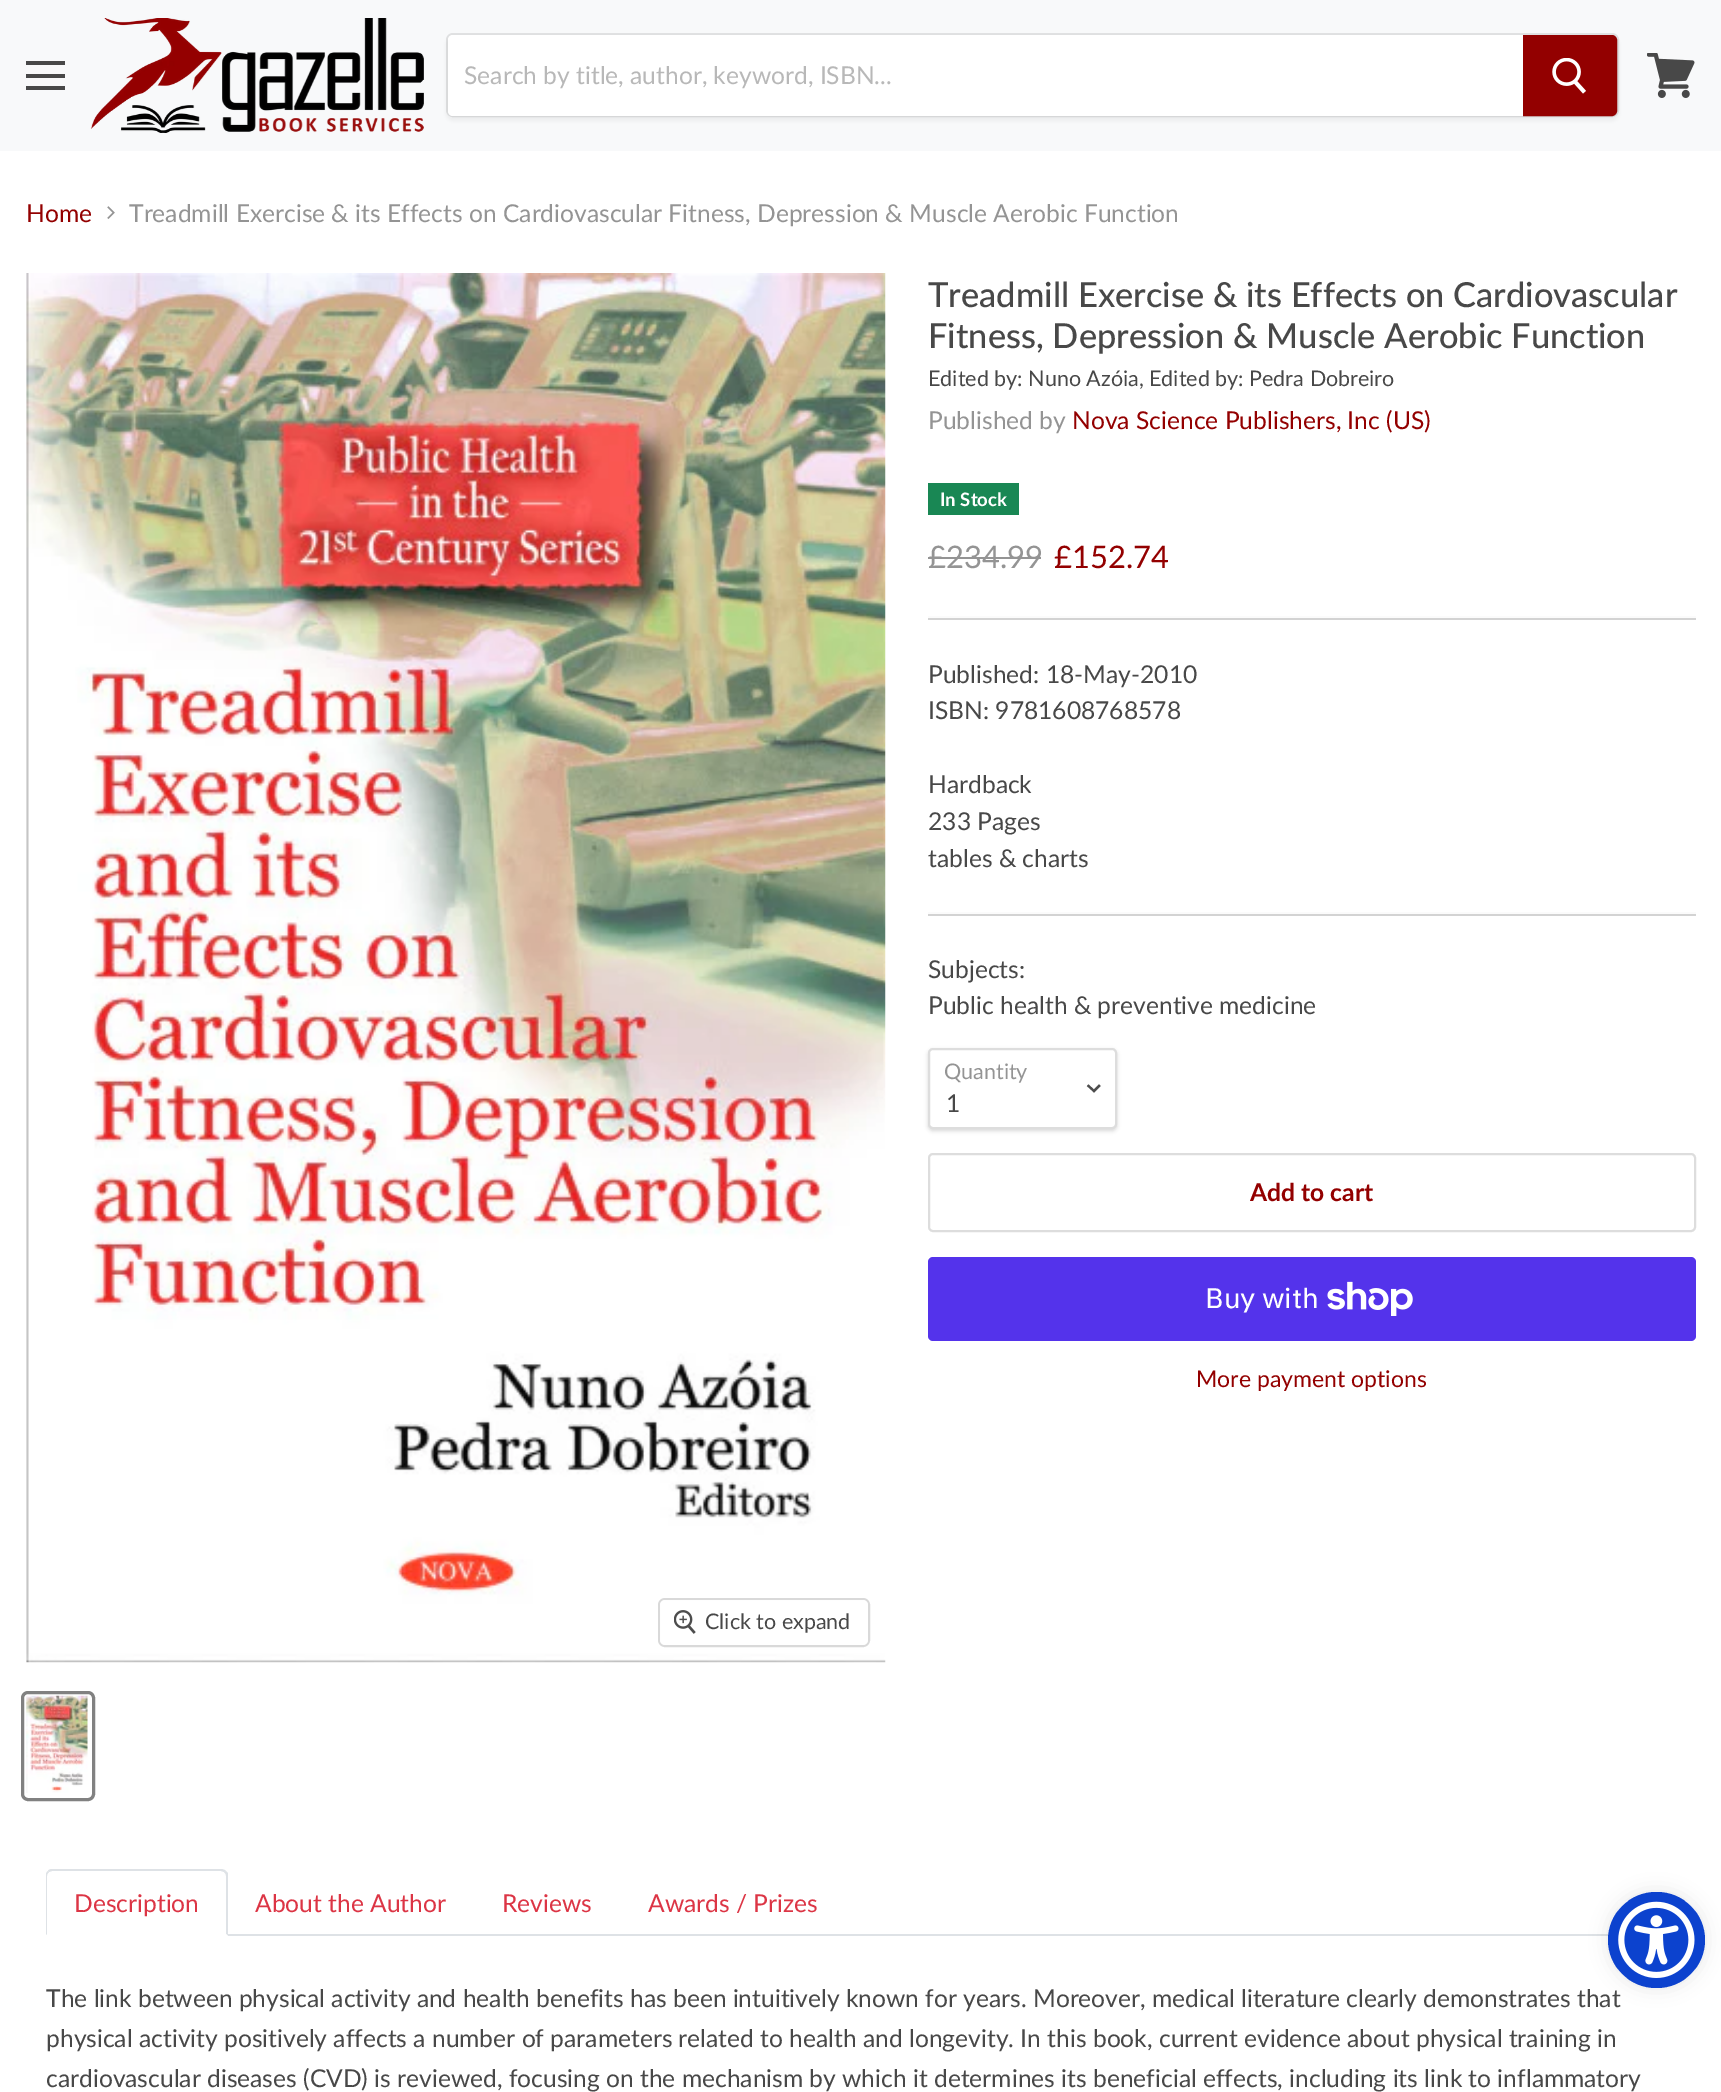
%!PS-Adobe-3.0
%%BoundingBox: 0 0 1721 2092
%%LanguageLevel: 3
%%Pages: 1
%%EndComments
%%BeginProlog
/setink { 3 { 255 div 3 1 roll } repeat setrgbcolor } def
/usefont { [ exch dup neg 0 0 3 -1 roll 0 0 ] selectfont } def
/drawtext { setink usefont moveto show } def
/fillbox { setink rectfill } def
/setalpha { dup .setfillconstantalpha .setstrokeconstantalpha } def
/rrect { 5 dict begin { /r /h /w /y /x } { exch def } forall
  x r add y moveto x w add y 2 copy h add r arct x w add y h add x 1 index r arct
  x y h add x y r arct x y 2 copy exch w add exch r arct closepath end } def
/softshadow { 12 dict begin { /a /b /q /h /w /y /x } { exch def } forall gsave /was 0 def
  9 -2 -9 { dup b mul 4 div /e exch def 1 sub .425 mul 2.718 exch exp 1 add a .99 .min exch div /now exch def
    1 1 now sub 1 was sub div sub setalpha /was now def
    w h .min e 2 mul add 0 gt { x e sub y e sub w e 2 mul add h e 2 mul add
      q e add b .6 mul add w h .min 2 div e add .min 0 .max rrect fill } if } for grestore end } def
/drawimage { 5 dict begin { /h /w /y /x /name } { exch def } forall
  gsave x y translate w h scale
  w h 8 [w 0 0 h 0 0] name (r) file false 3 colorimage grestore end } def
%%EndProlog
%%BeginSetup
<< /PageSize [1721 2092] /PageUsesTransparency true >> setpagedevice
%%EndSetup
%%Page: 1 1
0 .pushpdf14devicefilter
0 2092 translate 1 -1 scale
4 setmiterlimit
0 0 1721 2092 255 255 255 fillbox
0 0 1721 151 248 249 250 fillbox
26 61 39 4 72 72 72 fillbox
26 74 39 4 72 72 72 fillbox
26 86 39 4 72 72 72 fillbox
(assets/img1.rgb) 90 18 334 115 drawimage
128 128 128 setink
446 37 1173 84 7 2.5 0.11 softshadow
0.2 setalpha
2 setlinewidth
447 34 1171 82 6 rrect stroke
1 setalpha
255 255 255 setink
453 35 moveto 1523 35 lineto 1523 116 lineto 453 116 lineto 450 116 448 114 448 111 curveto 448 40 lineto 448 37 450 35 453 35 curveto closepath fill
(Search by title, author, keyword, ISBN...) 464 84 /Lato-Regular 24.6 184 184 184 drawtext
147 0 0 setink
1524 36 moveto 1612 36 lineto 1614 36 1616 38 1616 40 curveto 1616 111 lineto 1616 113 1614 115 1612 115 curveto 1524 115 lineto closepath gsave fill grestore
stroke
(assets/img2.rgb) 1552 58 34 36 drawimage
(assets/img3.rgb) 1647 53 48 45 drawimage
(Home) 26 222 /Lato-Regular 24.6 147 0 0 drawtext
(assets/img4.rgb) 107 206 8 13 drawimage
(Treadmill Exercise & its Effects on Cardiovascular Fitness, Depression & Muscle Aerobic Function) 129 222 /Lato-Regular 24.6 148 148 148 drawtext
(Treadmill Exercise & its Effects on Cardiovascular) 928 307 /Lato-Medium 34.45 72 72 72 drawtext
(Fitness, Depression & Muscle Aerobic Function) 928 348 /Lato-Medium 34.45 72 72 72 drawtext
(Edited by: Nuno Azóia, Edited by: Pedra Dobreiro) 928 386 /Lato-Regular 21.5 72 72 72 drawtext
(Published by) 928 429 /Lato-Regular 24.6 148 148 148 drawtext
(Nova Science Publishers, Inc \(US\)) 1072 429 /Lato-Regular 24.6 147 0 0 drawtext
928 483 91 32 25 135 84 fillbox
(In Stock) 940 506 /Lato-Bold 18.5 255 255 255 drawtext
(£234.99) 928 568 /Lato-Regular 31 148 148 148 drawtext
928 557 113 2 148 148 148 fillbox
(£152.74) 1054 568 /Lato-Regular 31 147 0 0 drawtext
928 618 768 2 211 211 211 fillbox
928 616 768 2 251 251 251 fillbox
(Published: 18-May-2010) 928 683 /Lato-Regular 24.6 72 72 72 drawtext
(ISBN: 9781608768578) 928 719 /Lato-Regular 24.6 72 72 72 drawtext
(Hardback) 928 793 /Lato-Regular 24.6 72 72 72 drawtext
(233 Pages) 928 830 /Lato-Regular 24.6 72 72 72 drawtext
(tables & charts) 928 867 /Lato-Regular 24.6 72 72 72 drawtext
928 914 768 2 211 211 211 fillbox
928 912 768 2 251 251 251 fillbox
(Subjects:) 928 978 /Lato-Regular 24.6 72 72 72 drawtext
(Public health & preventive medicine) 928 1014 /Lato-Regular 24.6 72 72 72 drawtext
0 0 0 setink
928 1050 189 81 5 2 0.15 softshadow
255 255 255 setink
929 1049 187 79 4 rrect gsave fill grestore
221 221 221 setink
stroke
(Quantity) 944 1079 /Lato-Regular 21.5 148 148 148 drawtext
77 77 77 setink
2.2 setlinewidth
2 setlinecap
1094 1091 moveto 1099 1086 lineto 1094 1091 moveto 1088.5 1086 lineto stroke
(1) 946 1112 /Lato-Regular 24.6 72 72 72 drawtext
221 221 221 setink
2 setlinewidth
0 setlinecap
929 1154 766 77 4 rrect stroke
(Add to cart) 1250 1201 /Lato-Bold 24.6 147 0 0 drawtext
84 51 235 setink
928 1257 768 84 5 rrect fill
(Buy with) 1205 1308 /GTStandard-Regular 28 255 255 255 drawtext
(assets/img5.rgb) 1327 1281 86 35 drawimage
(More payment options) 1196 1387 /Lato-Regular 23 147 0 0 drawtext
(assets/img6.rgb) 26 273 860 1390 drawimage
217 217 217 setink
659 1599 210 47 6 rrect stroke
0.9 setalpha
255 255 255 setink
660 1600 208 45 5 rrect fill
1 setalpha
(assets/img7.rgb) 674 1610 22 24 drawimage
(Click to expand) 705 1629 /Lato-Regular 21.5 72 72 72 drawtext
129 129 129 setink
3 setlinewidth
22.5 1692.5 71 107 5.5 rrect stroke
(assets/img8.rgb) 26 1695 62 98 drawimage
228 1934 1381 2 222 226 230 fillbox
52 1869 moveto 50 1869 48 1870 48 1871 curveto 49 1872 lineto 52 1871 lineto 221 1871 lineto 224 1872 lineto 226 1871 lineto 225 1870 223 1869 221 1869 curveto closepath fill
226 1871 moveto 228 1873 lineto 228 1936 lineto 226 1934 lineto 226 1876 lineto 226 1874 225 1873 224 1872 curveto closepath fill
255 255 255 setink
228 1936 moveto 46 1936 lineto 47 1934 lineto 226 1934 lineto closepath fill
222 226 230 setink
48 1871 moveto 46 1872 46 1874 46 1876 curveto 46 1935 lineto 47 1934 lineto 47 1876 lineto 47 1874 48 1873 49 1872 curveto closepath fill
(Description) 74 1912 /Lato-Regular 24.6 220 53 69 drawtext
(About the Author) 255 1912 /Lato-Regular 24.6 220 53 69 drawtext
(Reviews) 502 1912 /Lato-Regular 24.6 220 53 69 drawtext
(Awards / Prizes) 648 1912 /Lato-Regular 24.6 220 53 69 drawtext
(The link between physical activity and health benefits has been intuitively known for years. Moreover, medical literature clearly demonstrates that) 46 2007 /Lato-Regular 24.6 72 72 72 drawtext
(physical activity positively affects a number of parameters related to health and longevity. In this book, current evidence about physical training in) 46 2047 /Lato-Regular 24.6 72 72 72 drawtext
(cardiovascular diseases \(CVD\) is reviewed, focusing on the mechanism by which it determines its beneficial effects, including its link to inflammatory) 46 2087 /Lato-Regular 24.6 72 72 72 drawtext
0 0 0 setink
1608 1892 97 96 48 9 0.1 softshadow
12 66 206 setink
1608 1892 97 96 48 rrect fill
(assets/img9.rgb) 1618 1901 77 77 drawimage
.poppdf14devicefilter showpage
%%EOF
